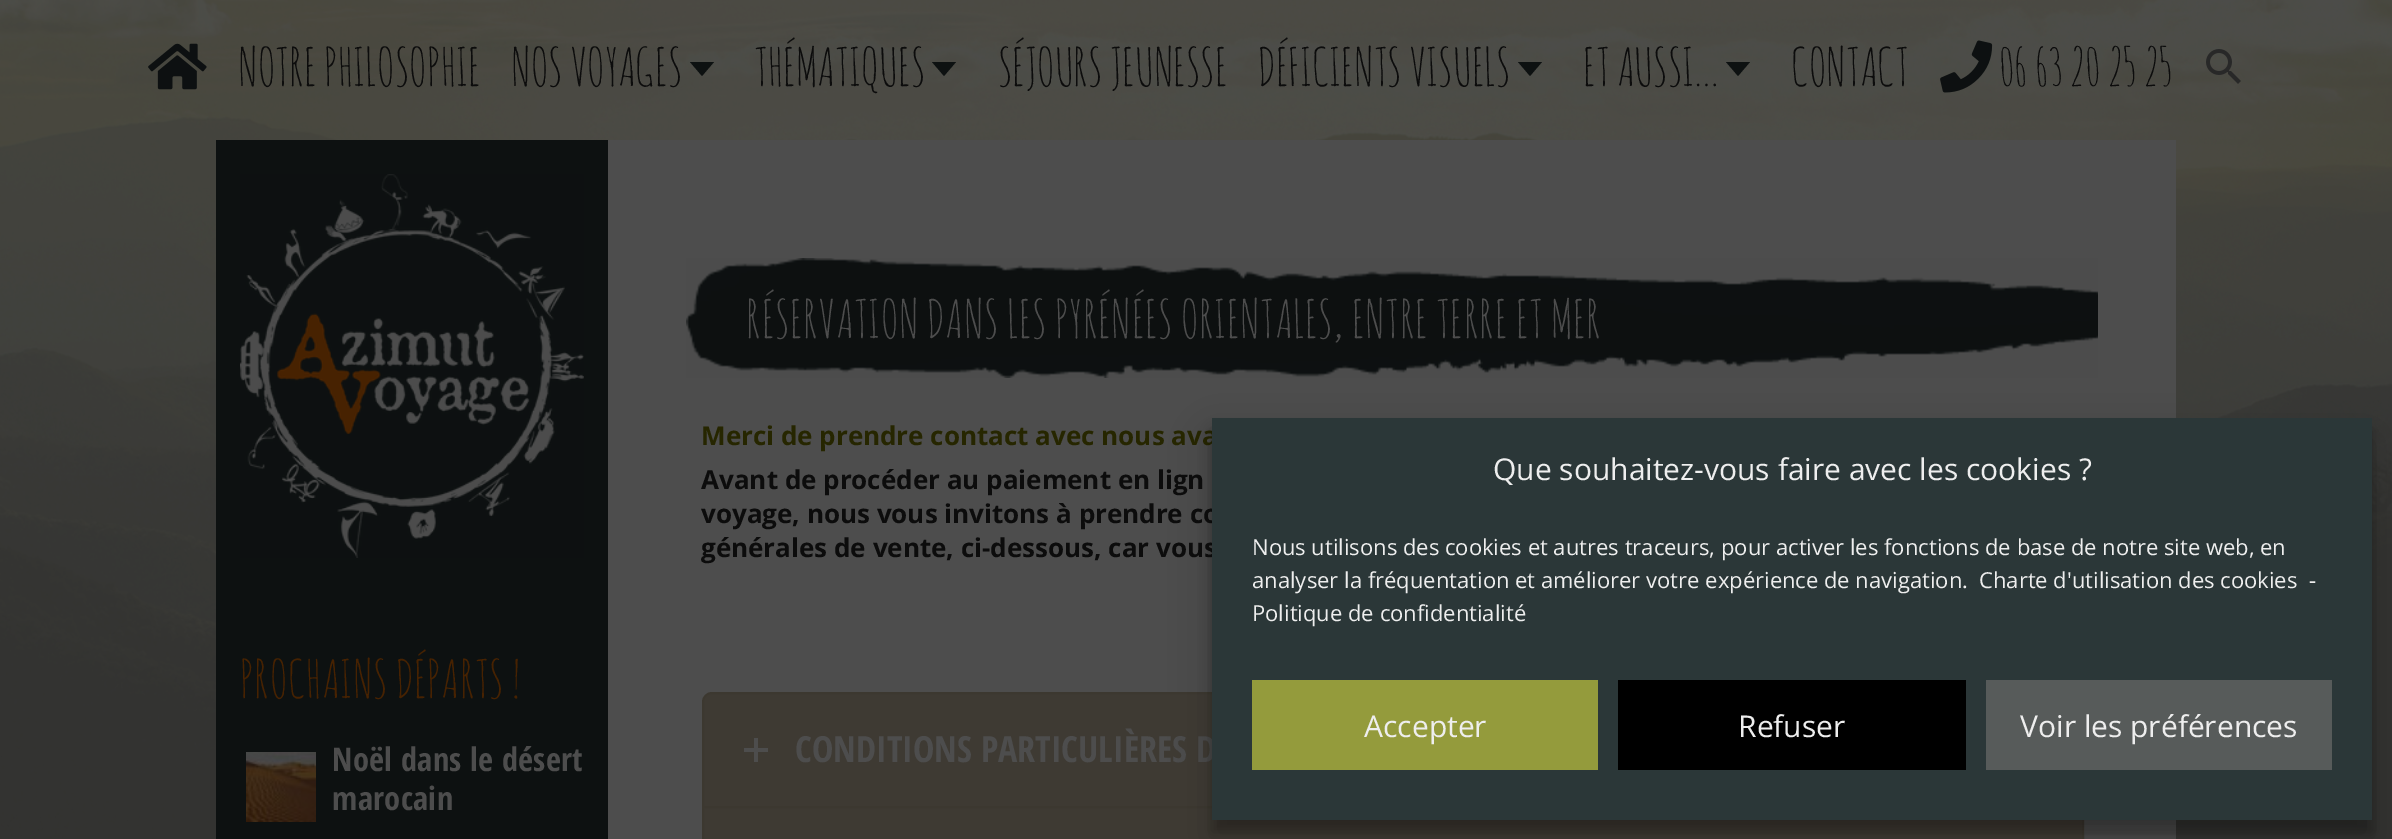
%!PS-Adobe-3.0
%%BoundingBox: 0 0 2392 839
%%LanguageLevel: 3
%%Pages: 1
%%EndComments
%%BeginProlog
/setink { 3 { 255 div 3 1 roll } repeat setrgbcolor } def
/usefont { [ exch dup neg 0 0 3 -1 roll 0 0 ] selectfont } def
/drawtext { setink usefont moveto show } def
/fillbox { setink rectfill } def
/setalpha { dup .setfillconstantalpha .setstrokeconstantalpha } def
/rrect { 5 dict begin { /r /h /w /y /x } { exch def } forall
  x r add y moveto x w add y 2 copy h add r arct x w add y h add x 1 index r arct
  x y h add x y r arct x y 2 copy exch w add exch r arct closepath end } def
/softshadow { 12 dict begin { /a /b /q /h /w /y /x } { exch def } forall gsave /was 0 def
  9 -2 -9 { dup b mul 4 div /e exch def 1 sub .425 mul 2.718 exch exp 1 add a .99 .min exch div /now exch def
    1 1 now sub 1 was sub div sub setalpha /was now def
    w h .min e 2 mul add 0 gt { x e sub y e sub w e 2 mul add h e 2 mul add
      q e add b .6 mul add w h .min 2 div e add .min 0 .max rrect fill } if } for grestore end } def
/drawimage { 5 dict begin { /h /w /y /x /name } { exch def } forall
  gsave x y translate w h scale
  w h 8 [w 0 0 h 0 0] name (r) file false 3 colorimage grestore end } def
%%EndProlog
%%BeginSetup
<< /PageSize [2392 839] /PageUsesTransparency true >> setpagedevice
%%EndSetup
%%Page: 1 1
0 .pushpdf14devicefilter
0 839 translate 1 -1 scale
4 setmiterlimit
0 0 2392 839 255 255 255 fillbox
(assets/img1.rgb) 0 0 2392 839 drawimage
(assets/img2.rgb) 148 43 59 47 drawimage
(NOTRE PHILOSOPHIE) 238 86 /AmaticSC-Regular 52 12 12 12 drawtext
(NOS VOYAGES) 511 86 /AmaticSC-Regular 52 12 12 12 drawtext
13 17 17 setink
690 62 moveto 714 62 lineto 702 76 lineto closepath fill
(THÉMATIQUES) 754 86 /AmaticSC-Regular 52 12 12 12 drawtext
13 17 17 setink
932 62 moveto 956 62 lineto 944 76 lineto closepath fill
(SÉJOURS JEUNESSE) 998 86 /AmaticSC-Regular 52 12 12 12 drawtext
(DÉFICIENTS VISUELS) 1258 86 /AmaticSC-Regular 52 12 12 12 drawtext
13 17 17 setink
1518 62 moveto 1542 62 lineto 1530 76 lineto closepath fill
(ET AUSSI…) 1583 86 /AmaticSC-Regular 52 12 12 12 drawtext
13 17 17 setink
1726 62 moveto 1750 62 lineto 1738 76 lineto closepath fill
(CONTACT) 1791 86 /AmaticSC-Regular 52 12 12 12 drawtext
(assets/img3.rgb) 1940 40 53 53 drawimage
(06 63 20 25 25) 1999 86 /AmaticSC-Regular 52 12 12 12 drawtext
(assets/img4.rgb) 2206 49 35 35 drawimage
216 140 392 699 13 17 17 fillbox
(assets/img5.rgb) 240 174 344 384 drawimage
71 34 1 setink
240 698 moveto 0.52 0 (PROCHAINS DÉPARTS !) ashow
(assets/img6.rgb) 246 752 70 70 drawimage
/OpenSansCondensed-Bold 32.5 usefont
77 77 77 setink
332 771 moveto 0.3 0 (Noël dans le désert) ashow
332 810 moveto 0.3 0 (marocain) ashow
608 140 1568 699 77 77 77 fillbox
(assets/img7.rgb) 686 258 1412 120 drawimage
/AmaticSC-Regular 52 usefont
746 338 moveto 0.52 0 (RÉSERVATION DANS LES PYRÉNÉES ORIENTALES, ENTRE TERRE ET MER) ashow
(Merci de prendre contact avec nous ava) 701 445 /OpenSans-Bold 26 38 38 0 drawtext
(Avant de procéder au paiement en lign) 701 489 /OpenSans-Bold 26 12 12 12 drawtext
(voyage, nous vous invitons à prendre co) 701 523 /OpenSans-Bold 26 12 12 12 drawtext
(générales de vente, ci-dessous, car vous) 701 557 /OpenSans-Bold 26 12 12 12 drawtext
62 58 51 setink
712 693 moveto 2074 693 lineto 2079 693 2083 697 2083 702 curveto 2083 807 lineto 703 807 lineto 703 702 lineto 703 697 707 693 712 693 curveto closepath gsave fill grestore
60 56 48 setink
2 setlinewidth
stroke
744 748 24 4 77 77 77 fillbox
754 738 4 24 77 77 77 fillbox
(CONDITIONS PARTICULIÈRES D) 795 762 /OpenSansCondensed-Bold 36 77 77 77 drawtext
62 58 51 setink
703 807 moveto 2083 807 lineto 2083 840 lineto 703 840 lineto closepath gsave fill grestore
60 56 48 setink
stroke
0 0 0 setink
1212 430 1160 402 0 6 0.23 softshadow
1212 438 1160 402 0 20 0.19 softshadow
1212 418 1160 402 43 55 56 fillbox
(Que souhaitez-vous faire avec les cookies ?) 1493 480 /OpenSans-Regular 30 238 238 238 drawtext
(Nous utilisons des cookies et autres traceurs, pour activer les fonctions de base de notre site web, en) 1252 555 /OpenSans-Regular 22 238 238 238 drawtext
(analyser la fréquentation et améliorer votre expérience de navigation.) 1252 588 /OpenSans-Regular 22 238 238 238 drawtext
(Charte d'utilisation des cookies) 1979 588 /OpenSans-Regular 22 238 238 238 drawtext
(-) 2309 588 /OpenSans-Regular 22 238 238 238 drawtext
(Politique de confidentialité) 1252 621 /OpenSans-Regular 22 238 238 238 drawtext
1252 680 346 90 148 155 60 fillbox
(Accepter) 1364 737 /OpenSans-Regular 30 238 238 238 drawtext
1618 680 348 90 0 0 0 fillbox
(Refuser) 1738 737 /OpenSans-Regular 30 238 238 238 drawtext
1986 680 346 90 87 91 90 fillbox
(Voir les préférences) 2020 737 /OpenSans-Regular 30 238 238 238 drawtext
.poppdf14devicefilter showpage
%%EOF
